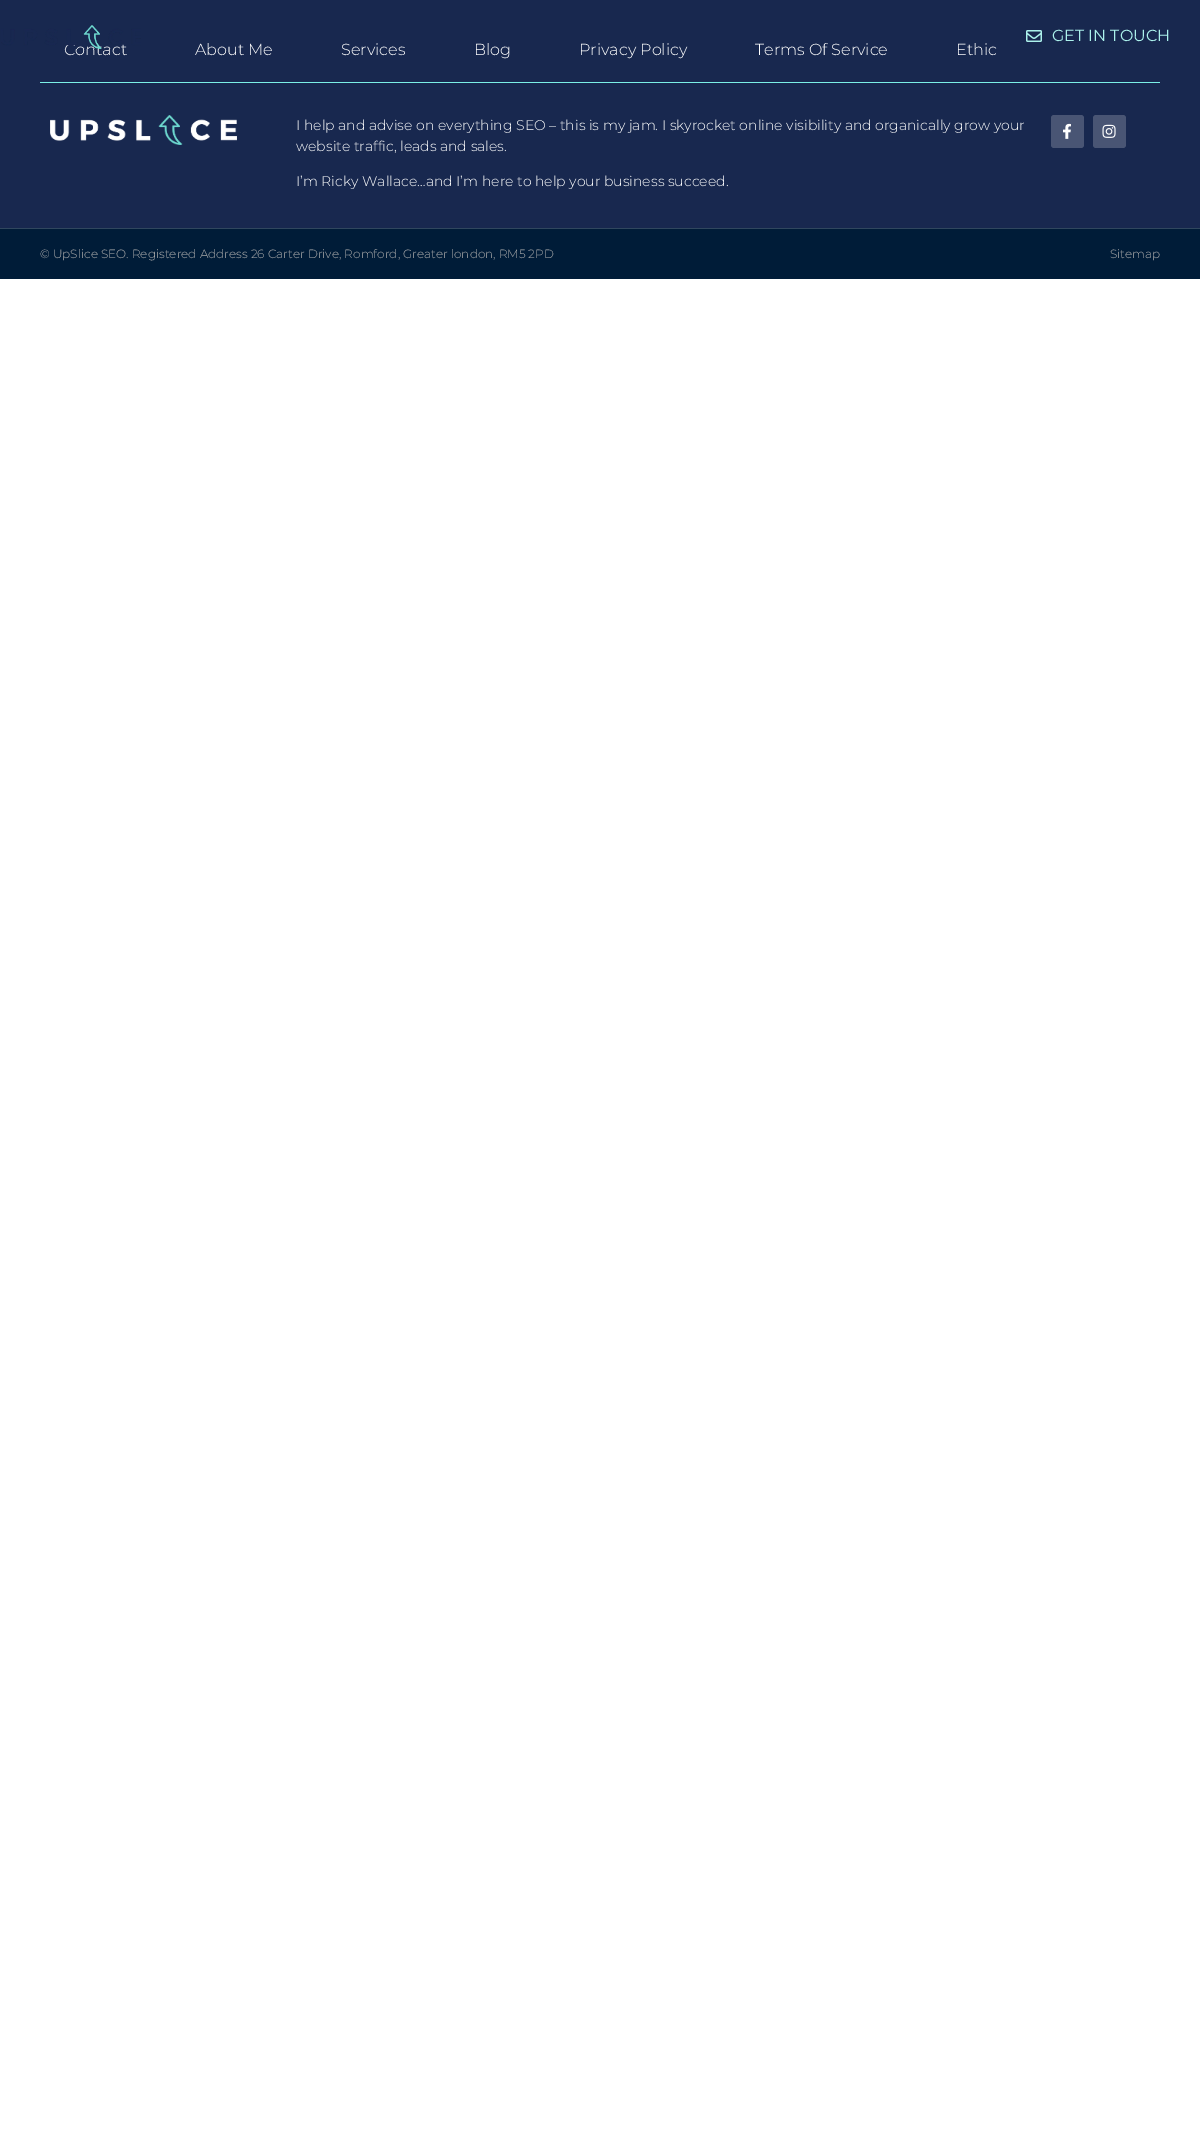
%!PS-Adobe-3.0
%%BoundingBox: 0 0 1200 2143
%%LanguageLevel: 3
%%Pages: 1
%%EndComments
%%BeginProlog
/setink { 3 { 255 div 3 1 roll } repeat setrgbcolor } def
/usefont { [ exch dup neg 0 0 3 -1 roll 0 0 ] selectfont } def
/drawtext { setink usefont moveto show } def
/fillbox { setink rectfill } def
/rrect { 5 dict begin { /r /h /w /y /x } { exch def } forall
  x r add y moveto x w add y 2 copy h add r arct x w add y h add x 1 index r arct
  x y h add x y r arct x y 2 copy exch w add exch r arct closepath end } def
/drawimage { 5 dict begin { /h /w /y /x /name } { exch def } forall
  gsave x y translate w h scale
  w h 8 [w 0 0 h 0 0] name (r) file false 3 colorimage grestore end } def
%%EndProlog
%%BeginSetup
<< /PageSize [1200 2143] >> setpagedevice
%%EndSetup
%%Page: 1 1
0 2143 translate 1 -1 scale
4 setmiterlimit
0 0 1200 2143 255 255 255 fillbox
0 0 1200 228 24 40 79 fillbox
(Contact) 64 55 /Montserrat-Light 16 255 255 255 drawtext
(assets/img1.rgb) 1 25 140 24 drawimage
(assets/img2.rgb) 1026 30 16 12 drawimage
(GET IN TOUCH) 1052 41 /Montserrat-Regular 16 172 242 236 drawtext
(About Me) 195 55 /Montserrat-Light 16 255 255 255 drawtext
(Services) 341 55 /Montserrat-Light 16 255 255 255 drawtext
(Blog) 474 55 /Montserrat-Light 16 255 255 255 drawtext
(Privacy Policy) 579 55 /Montserrat-Light 16 255 255 255 drawtext
(Terms Of Service) 755 55 /Montserrat-Light 16 255 255 255 drawtext
(Ethic) 956 55 /Montserrat-Light 16 255 255 255 drawtext
40 82 1120 1 123 240 230 fillbox
(assets/img3.rgb) 50 115 187 30 drawimage
(I help and advise on everything SEO – this is my jam. I skyrocket online visibility and organically grow your) 296 130 /Montserrat-Light 14 255 255 255 drawtext
(website traffic, leads and sales.) 296 151 /Montserrat-Light 14 255 255 255 drawtext
(I’m Ricky Wallace…and I’m here to help your business succeed.) 296 186 /Montserrat-Light 14 255 255 255 drawtext
73 85 116 setink
1051 115 33 33 3 rrect fill
(assets/img4.rgb) 1063 123 8 16 drawimage
1093 115 33 33 3 rrect fill
(assets/img5.rgb) 1102 124 14 14 drawimage
0 229 1200 50 0 28 56 fillbox
0 228 1200 1 48 71 94 fillbox
(© UpSlice SEO. Registered Address 26 Carter Drive, Romford, Greater london, RM5 2PD) 40 258 /Montserrat-Light 12 173 173 173 drawtext
(Sitemap) 1110 258 /Montserrat-Light 12 173 173 173 drawtext
showpage
%%EOF
